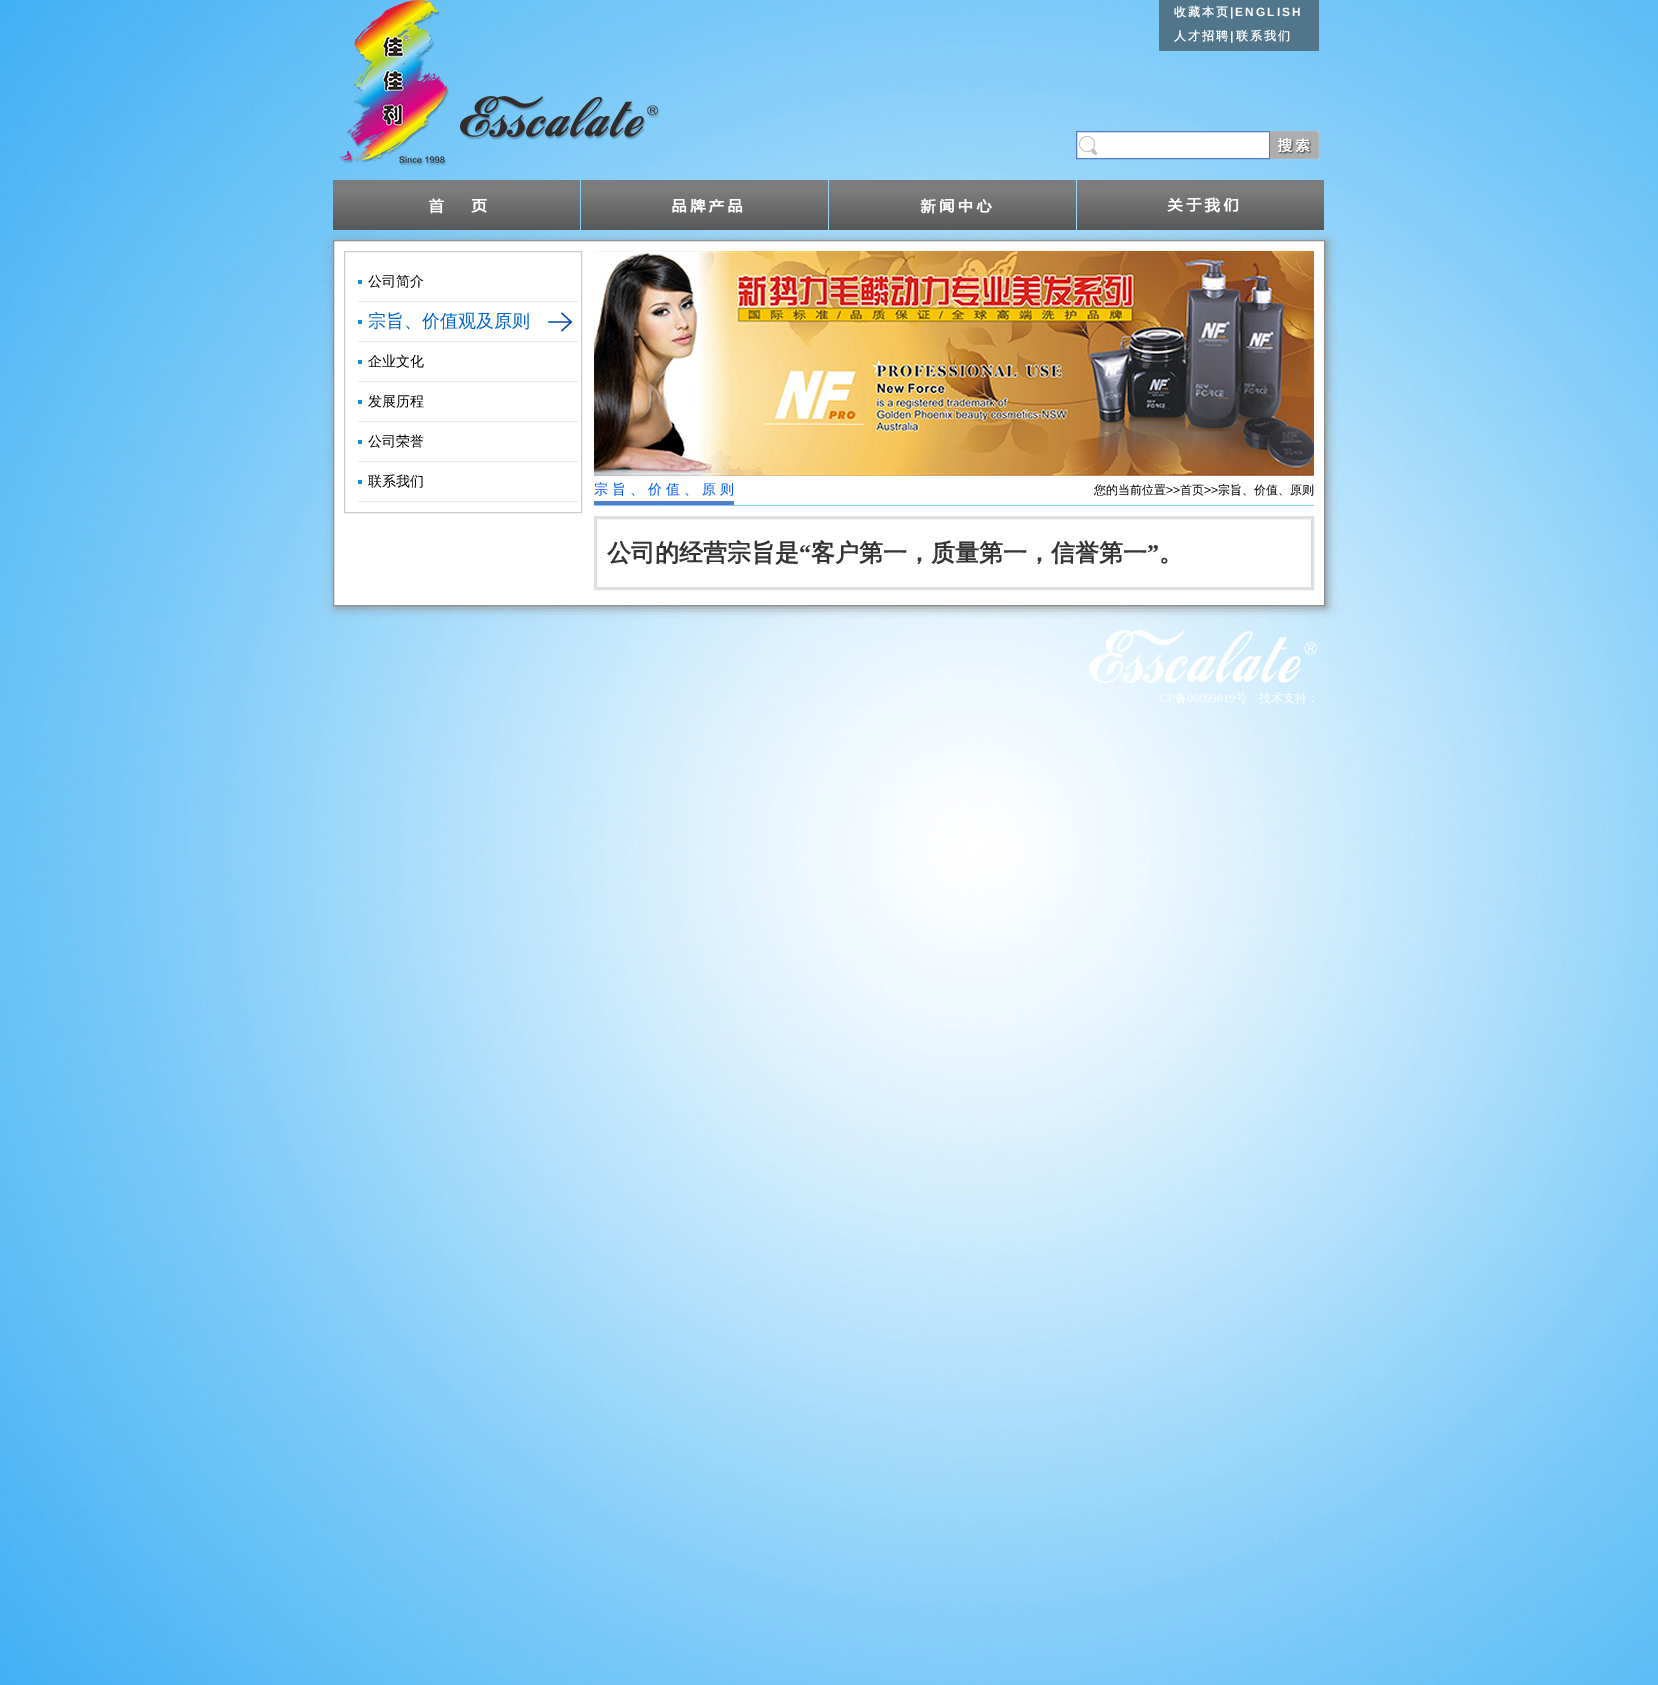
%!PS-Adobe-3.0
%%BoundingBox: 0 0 1658 1685
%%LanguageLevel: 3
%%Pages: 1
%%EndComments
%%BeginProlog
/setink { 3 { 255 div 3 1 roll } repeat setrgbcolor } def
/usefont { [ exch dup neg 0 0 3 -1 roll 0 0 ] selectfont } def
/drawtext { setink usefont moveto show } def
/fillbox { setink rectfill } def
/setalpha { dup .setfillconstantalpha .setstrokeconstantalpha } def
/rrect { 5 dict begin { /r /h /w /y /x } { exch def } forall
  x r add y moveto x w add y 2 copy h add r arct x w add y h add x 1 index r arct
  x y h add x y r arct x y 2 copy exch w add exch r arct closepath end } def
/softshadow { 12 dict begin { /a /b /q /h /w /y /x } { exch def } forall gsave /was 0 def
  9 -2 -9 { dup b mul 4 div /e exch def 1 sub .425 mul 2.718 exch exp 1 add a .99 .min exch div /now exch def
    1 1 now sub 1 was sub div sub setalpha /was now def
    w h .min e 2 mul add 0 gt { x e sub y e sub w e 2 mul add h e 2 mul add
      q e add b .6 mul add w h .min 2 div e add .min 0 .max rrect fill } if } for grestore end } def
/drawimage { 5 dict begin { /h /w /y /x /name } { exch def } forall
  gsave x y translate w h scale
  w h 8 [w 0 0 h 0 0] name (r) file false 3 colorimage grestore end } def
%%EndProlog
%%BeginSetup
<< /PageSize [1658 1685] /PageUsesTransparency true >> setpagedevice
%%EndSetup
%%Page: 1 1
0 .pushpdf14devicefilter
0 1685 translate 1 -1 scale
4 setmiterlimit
0 0 1658 1685 255 255 255 fillbox
(assets/img1.rgb) 0 0 1658 1685 drawimage
(assets/img2.rgb) 339 0 321 166 drawimage
1159 0 160 51 81 117 139 fillbox
/WenQuanYiZenHei-Bold 12 usefont
255 255 255 setink
1174 16 moveto 2 0 (收藏本页) ashow
/LiberationSans-Bold 12 usefont
1230 16 moveto 2 0 (|ENGLISH) ashow
/WenQuanYiZenHei-Bold 12 usefont
1174 40 moveto 2 0 (人才招聘 联系我们) ashow
/LiberationSans-Bold 12 usefont
1230 40 moveto 2 0 (|) ashow
(assets/img3.rgb) 1077 132 192 26 drawimage
77 126 198 setink
1076.5 131.5 193 27 rectstroke
(assets/img4.rgb) 1270 131 49 28 drawimage
144 144 144 setink
335 242 992 366 0 5 1 softshadow
(assets/img5.rgb) 333 180 247 50 drawimage
(assets/img6.rgb) 581 180 247 50 drawimage
(assets/img7.rgb) 829 180 247 50 drawimage
(assets/img8.rgb) 1077 180 247 50 drawimage
255 255 255 setink
333.5 240.5 moveto 1324.5 240.5 lineto 1324.5 605.5 lineto 333.5 605.5 lineto closepath gsave fill grestore
144 144 144 setink
stroke
204 204 204 setink
344.5 251.5 237 261 rectstroke
358 280 4 4 0 147 217 fillbox
358 301 220 1 229 229 229 fillbox
(公司简介) 368 286 /WenQuanYiZenHei-Medium 14 0 0 0 drawtext
358 320 4 4 0 147 217 fillbox
358 341 220 1 229 229 229 fillbox
(assets/img9.rgb) 548 312 24 20 drawimage
(宗旨、价值观及原则) 368 327 /WenQuanYiZenHei-Medium 18 0 102 204 drawtext
358 360 4 4 0 147 217 fillbox
358 381 220 1 229 229 229 fillbox
(企业文化) 368 366 /WenQuanYiZenHei-Medium 14 0 0 0 drawtext
358 400 4 4 0 147 217 fillbox
358 421 220 1 229 229 229 fillbox
(发展历程) 368 406 /WenQuanYiZenHei-Medium 14 0 0 0 drawtext
358 440 4 4 0 147 217 fillbox
358 461 220 1 229 229 229 fillbox
(公司荣誉) 368 446 /WenQuanYiZenHei-Medium 14 0 0 0 drawtext
358 480 4 4 0 147 217 fillbox
358 501 220 1 229 229 229 fillbox
(联系我们) 368 486 /WenQuanYiZenHei-Medium 14 0 0 0 drawtext
(assets/img10.rgb) 594 251 720 225 drawimage
(assets/img11.rgb) 594 501 720 5 drawimage
1 90 255 setink
594 494 moveto 4 0 (宗旨、价值、原则) ashow
(您的当前位置) 1094 494 /WenQuanYiZenHei-Medium 12 0 0 0 drawtext
(>>) 1166 494 /LiberationSans-Regular 12 0 0 0 drawtext
(首页) 1180 494 /WenQuanYiZenHei-Medium 12 0 0 0 drawtext
(>>) 1204 494 /LiberationSans-Regular 12 0 0 0 drawtext
(宗旨、价值、原则) 1218 494 /WenQuanYiZenHei-Medium 12 0 0 0 drawtext
222 222 222 setink
3 setlinewidth
595.5 517.5 717 71 rectstroke
(公司的经营宗旨是) 607 561 /WenQuanYiZenHei-Bold 24 51 51 51 drawtext
(“) 799 561 /LiberationSerif-Bold 24 51 51 51 drawtext
(客户第一，质量第一，信誉第一) 811 561 /WenQuanYiZenHei-Bold 24 51 51 51 drawtext
(”) 1147 561 /LiberationSerif-Bold 24 51 51 51 drawtext
(。) 1159 561 /WenQuanYiZenHei-Bold 24 51 51 51 drawtext
(assets/img12.rgb) 1089 630 228 53 drawimage
(CP) 1160 702 /LiberationSerif-Regular 12 255 255 255 drawtext
(备) 1175 702 /WenQuanYiZenHei-Medium 12 255 255 255 drawtext
(06099819) 1187 702 /LiberationSerif-Regular 12 255 255 255 drawtext
(号) 1235 702 /WenQuanYiZenHei-Medium 12 255 255 255 drawtext
(技术支持：) 1259 702 /WenQuanYiZenHei-Medium 12 255 255 255 drawtext
.poppdf14devicefilter showpage
%%EOF
